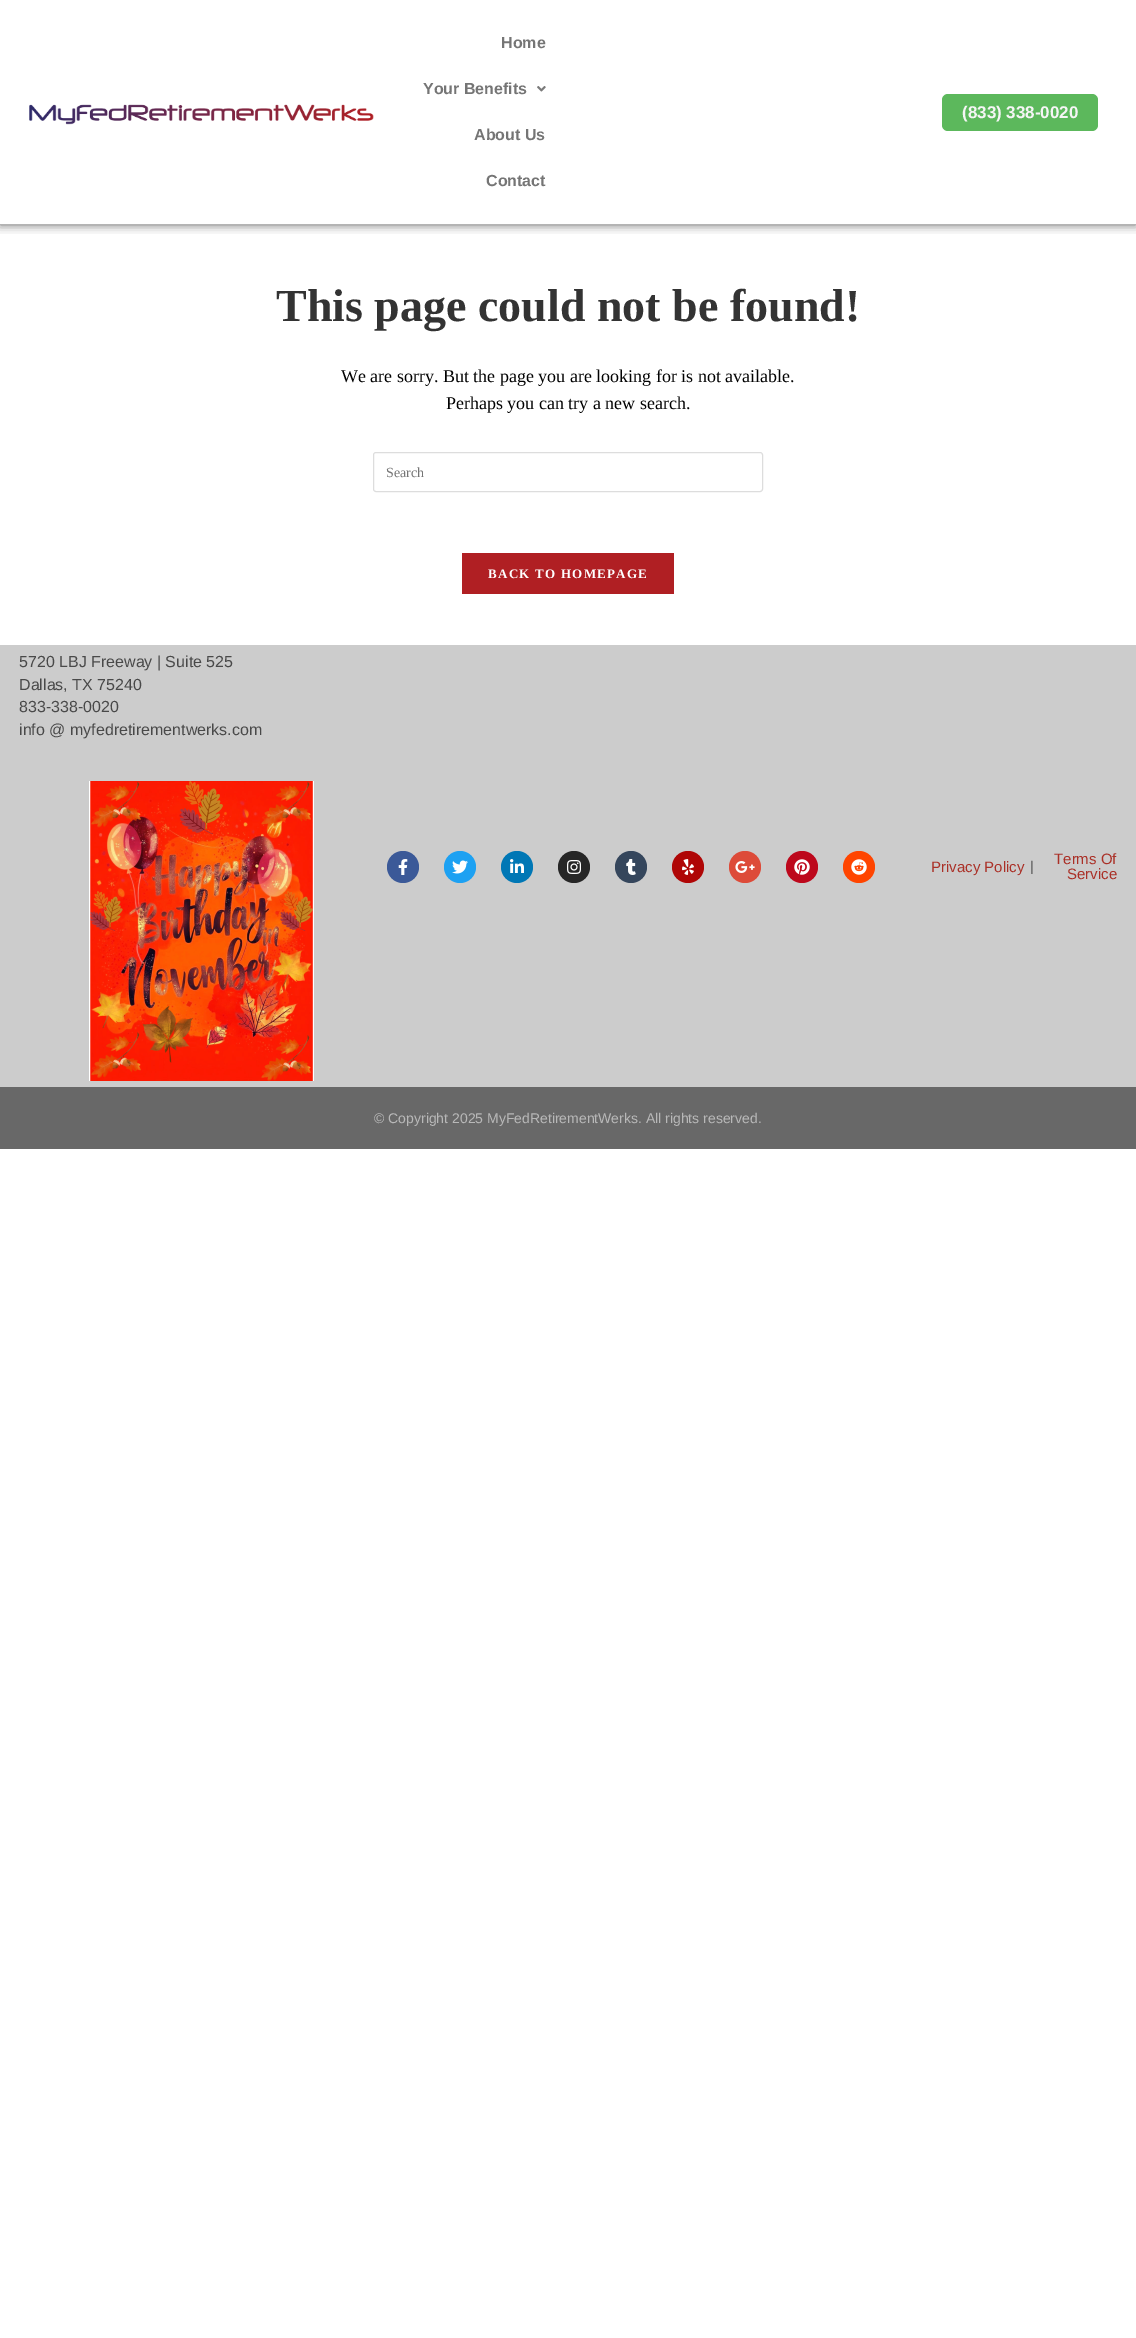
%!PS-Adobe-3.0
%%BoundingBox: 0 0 1136 2338
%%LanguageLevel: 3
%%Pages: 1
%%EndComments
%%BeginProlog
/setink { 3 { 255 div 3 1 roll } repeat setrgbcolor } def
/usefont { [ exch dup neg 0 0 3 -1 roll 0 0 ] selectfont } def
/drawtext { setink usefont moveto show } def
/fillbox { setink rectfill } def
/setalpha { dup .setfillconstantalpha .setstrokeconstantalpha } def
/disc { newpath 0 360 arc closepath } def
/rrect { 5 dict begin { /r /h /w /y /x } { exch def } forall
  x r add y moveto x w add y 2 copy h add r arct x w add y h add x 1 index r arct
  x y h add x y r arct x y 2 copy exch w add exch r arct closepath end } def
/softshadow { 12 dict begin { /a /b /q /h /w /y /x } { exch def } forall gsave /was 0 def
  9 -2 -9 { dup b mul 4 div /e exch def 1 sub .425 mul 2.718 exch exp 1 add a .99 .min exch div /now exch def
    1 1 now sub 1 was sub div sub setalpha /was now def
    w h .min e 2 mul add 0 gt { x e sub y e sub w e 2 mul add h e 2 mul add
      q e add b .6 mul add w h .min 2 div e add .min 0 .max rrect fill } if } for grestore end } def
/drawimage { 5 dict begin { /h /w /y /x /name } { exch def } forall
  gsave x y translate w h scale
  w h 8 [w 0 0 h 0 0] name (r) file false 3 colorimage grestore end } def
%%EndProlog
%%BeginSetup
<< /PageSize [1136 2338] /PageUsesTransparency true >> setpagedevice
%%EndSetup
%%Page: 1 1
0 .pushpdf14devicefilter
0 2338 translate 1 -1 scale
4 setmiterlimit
0 0 1136 2338 255 255 255 fillbox
gsave
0 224 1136 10 rectclip
0 0 0 setink
0 1 1136 224 0 5 0.58 softshadow
grestore
(assets/img1.rgb) 29 104 345 21 drawimage
(Home) 501 48 /LiberationSans-Bold 16 117 117 117 drawtext
(Your Benefits) 423 94 /LiberationSans-Bold 16 117 117 117 drawtext
(assets/img2.rgb) 537 86 9 6 drawimage
(About Us) 474 140 /LiberationSans-Bold 16 117 117 117 drawtext
(Contact) 486 186 /LiberationSans-Bold 16 117 117 117 drawtext
92 184 92 setink
942 94 156 37 6 rrect fill
(\(833\) 338-0020) 962 118 /LiberationSans-Bold 17 245 245 245 drawtext
(This page could not be found!) 276 321 /LiberationSerif-Bold 46 51 51 51 drawtext
(We are sorry. But the page you are looking for is not available.) 341 382 /LiberationSerif-Regular 18 2 2 2 drawtext
(Perhaps you can try a new search.) 446 409 /LiberationSerif-Regular 18 2 2 2 drawtext
221 221 221 setink
373.5 452.5 389 39 2.5 rrect stroke
(Search) 386 477 /LiberationSerif-Regular 14 117 117 117 drawtext
462 553 212 41 176 31 35 fillbox
/LiberationSerif-Bold 13 usefont
255 255 255 setink
488 578 moveto 1.25 0 (BACK TO HOMEPAGE) ashow
0 645 1136 442 204 204 204 fillbox
(5720 LBJ Freeway | Suite 525) 19 667 /LiberationSans-Regular 16 73 73 73 drawtext
(Dallas, TX 75240) 19 690 /LiberationSans-Regular 16 73 73 73 drawtext
(833-338-0020) 19 712 /LiberationSans-Regular 16 73 73 73 drawtext
(info @ myfedretirementwerks.com) 19 735 /LiberationSans-Regular 16 73 73 73 drawtext
(assets/img3.rgb) 89 781 225 300 drawimage
59 89 152 setink
403 867 16 disc fill
(assets/img4.rgb) 398 859 10 16 drawimage
29 161 242 setink
460 867 16 disc fill
(assets/img5.rgb) 452 860 16 14 drawimage
0 119 181 setink
517 867 16 disc fill
(assets/img6.rgb) 510 859 14 14 drawimage
38 38 38 setink
574 867 16 disc fill
(assets/img7.rgb) 567 860 14 14 drawimage
53 70 92 setink
631 867 16 disc fill
(assets/img8.rgb) 626 859 10 16 drawimage
175 6 6 setink
688 867 16 disc fill
(assets/img9.rgb) 682 859 12 16 drawimage
221 75 57 setink
745 867 16 disc fill
(assets/img10.rgb) 735 861 20 12 drawimage
189 8 28 setink
802 867 16 disc fill
(assets/img11.rgb) 794 859 16 16 drawimage
255 69 0 setink
859 867 16 disc fill
(assets/img12.rgb) 851 859 16 16 drawimage
(Privacy Policy) 931 872 /LiberationSans-Regular 15 170 48 39 drawtext
(|) 1030 871 /LiberationSans-Regular 14 89 89 89 drawtext
(Terms Of) 1054 864 /LiberationSans-Regular 15 170 48 39 drawtext
(Service) 1067 879 /LiberationSans-Regular 15 170 48 39 drawtext
0 1087 1136 62 104 104 104 fillbox
(© Copyright 2025 MyFedRetirementWerks. All rights reserved.) 374 1123 /LiberationSans-Regular 14 184 184 184 drawtext
.poppdf14devicefilter showpage
%%EOF
